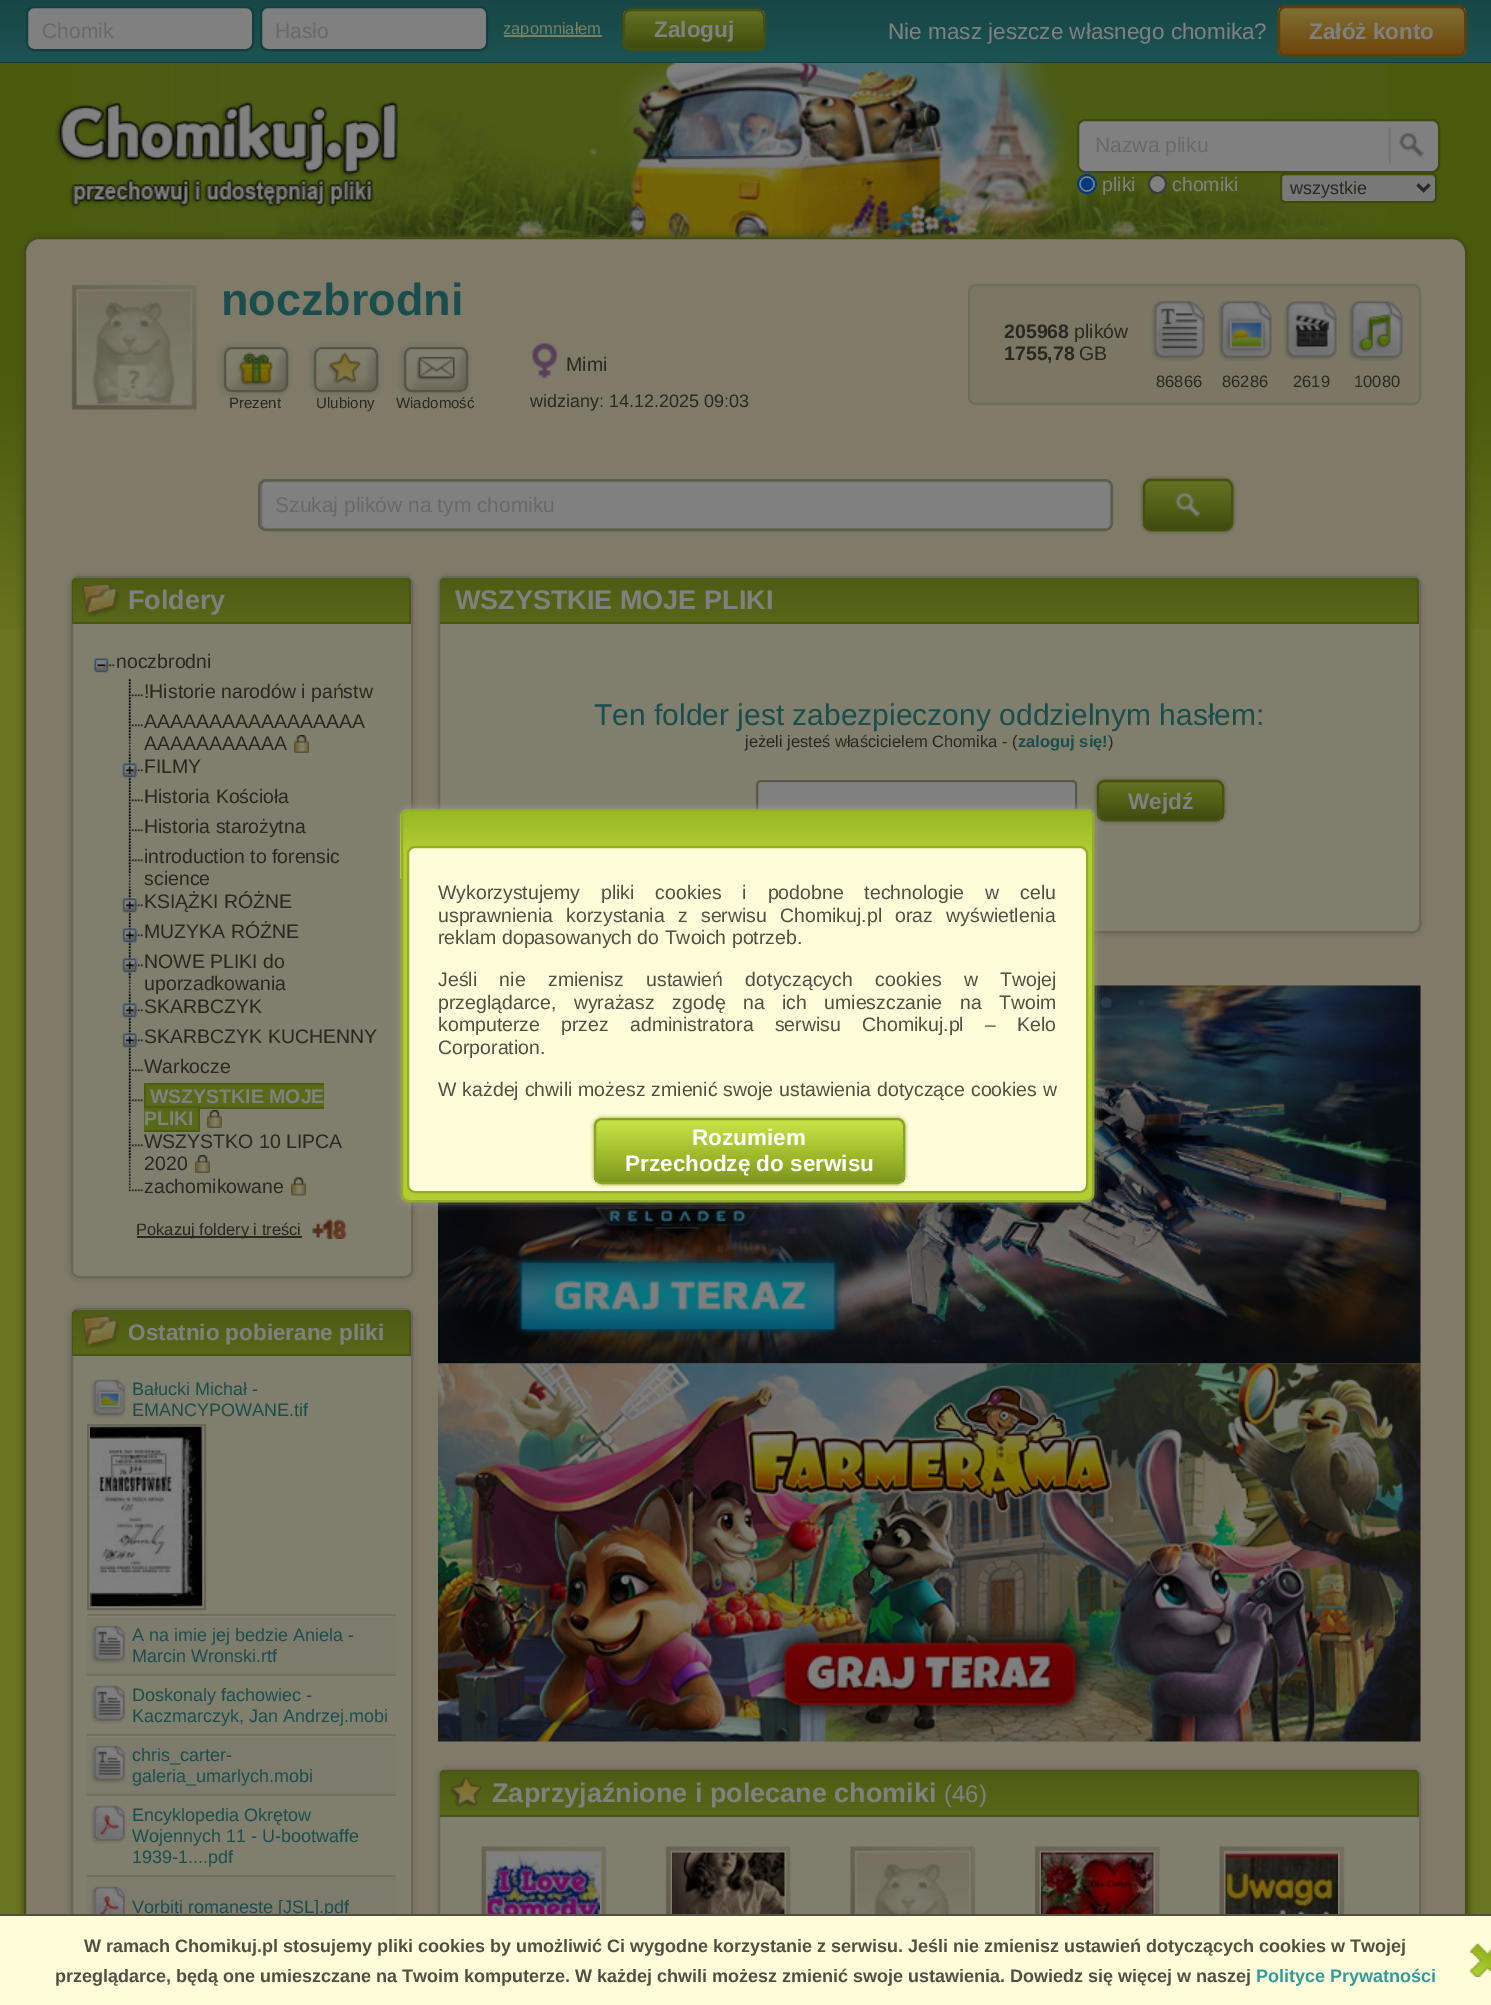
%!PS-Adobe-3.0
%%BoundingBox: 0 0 1491 2005
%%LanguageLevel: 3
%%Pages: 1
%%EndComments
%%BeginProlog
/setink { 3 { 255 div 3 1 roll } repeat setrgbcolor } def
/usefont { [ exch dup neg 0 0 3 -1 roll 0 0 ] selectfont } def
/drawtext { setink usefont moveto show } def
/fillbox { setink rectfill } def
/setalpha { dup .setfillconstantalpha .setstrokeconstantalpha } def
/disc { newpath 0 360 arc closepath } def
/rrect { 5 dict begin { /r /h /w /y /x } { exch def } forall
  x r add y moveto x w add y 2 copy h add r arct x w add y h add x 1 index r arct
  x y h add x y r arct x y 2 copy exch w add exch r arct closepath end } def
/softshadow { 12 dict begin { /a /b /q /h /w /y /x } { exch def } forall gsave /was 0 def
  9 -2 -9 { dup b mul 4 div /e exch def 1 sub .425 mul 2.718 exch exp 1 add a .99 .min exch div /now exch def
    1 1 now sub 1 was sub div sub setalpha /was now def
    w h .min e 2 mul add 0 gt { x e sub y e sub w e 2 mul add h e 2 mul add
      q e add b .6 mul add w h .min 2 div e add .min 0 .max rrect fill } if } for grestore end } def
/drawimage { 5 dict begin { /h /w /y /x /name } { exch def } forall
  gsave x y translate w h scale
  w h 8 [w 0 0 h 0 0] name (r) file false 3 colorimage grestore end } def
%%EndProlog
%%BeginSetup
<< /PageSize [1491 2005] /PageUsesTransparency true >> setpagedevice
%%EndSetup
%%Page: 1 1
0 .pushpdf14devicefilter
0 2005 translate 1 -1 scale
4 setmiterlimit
0 0 1491 2005 255 255 255 fillbox
gsave 0 0 moveto 1491 0 lineto 1491 62 lineto 0 62 lineto closepath clip newpath
<< /ShadingType 2 /ColorSpace /DeviceRGB /Coords [746 0 746 62] /Extend [true true] /Function << /FunctionType 2 /Domain [0 1] /C0 [0.094 0.275 0.275] /C1 [0.11 0.325 0.325] /N 1 >> >> shfill grestore
0 62 1491 1 20 59 59 fillbox
128 128 128 setink
27 7 226 43 7 rrect gsave fill grestore
21 62 62 setink
2 setlinewidth
stroke
(Chomik) 42 38 /LiberationSans-Regular 21 104 104 104 drawtext
128 128 128 setink
261 7 226 43 7 rrect gsave fill grestore
21 62 62 setink
stroke
(Hasło) 275 38 /LiberationSans-Regular 21 104 104 104 drawtext
504 35 98 2 120 128 95 fillbox
(zapomniałem) 503 34 /LiberationSans-Regular 16.5 120 128 95 drawtext
69 77 19 setink
623 9 142 41 8 2 1 softshadow
gsave
623 9 142 41 8 rrect clip newpath
gsave 623 11 moveto 765 11 lineto 765 48 lineto 623 48 lineto closepath clip newpath
<< /ShadingType 2 /ColorSpace /DeviceRGB /Coords [694 10 694 48] /Extend [true true] /Function << /FunctionType 3 /Domain [0 1] /Functions [<< /FunctionType 2 /Domain [0 1] /C0 [0.388 0.443 0.137] /C1 [0.388 0.443 0.137] /N 1 >> << /FunctionType 2 /Domain [0 1] /C0 [0.388 0.443 0.137] /C1 [0.306 0.361 0.082] /N 1 >> << /FunctionType 2 /Domain [0 1] /C0 [0.306 0.361 0.082] /C1 [0.271 0.325 0.071] /N 1 >> << /FunctionType 2 /Domain [0 1] /C0 [0.271 0.325 0.071] /C1 [0.247 0.294 0.063] /N 1 >>] /Bounds [0.06 0.61 0.83] /Encode [0 1 0 1 0 1 0 1] >> >> shfill grestore
grestore
69 81 18 setink
624 10 140 39 7 rrect stroke
(Zaloguj) 654 37 /LiberationSans-Bold 22.5 128 128 128 drawtext
(Nie masz jeszcze własnego chomika?) 888 39 /LiberationSans-Regular 22.5 128 128 128 drawtext
69 77 19 setink
1278 6 188 50 8 2 1 softshadow
gsave
1278 6 188 50 8 rrect clip newpath
gsave 1278 8 moveto 1466 8 lineto 1466 54 lineto 1278 54 lineto closepath clip newpath
<< /ShadingType 2 /ColorSpace /DeviceRGB /Coords [1372 7.5 1372 54] /Extend [true true] /Function << /FunctionType 2 /Domain [0 1] /C0 [0.502 0.439 0.204] /C1 [0.435 0.275 0.039] /N 1 >> >> shfill grestore
grestore
101 60 11 setink
1279 7 186 48 7 rrect stroke
(Załóż konto) 1309 39 /LiberationSans-Bold 22.5 128 128 128 drawtext
0 629 1491 1285 106 117 31 fillbox
(assets/img1.rgb) 0 63 1491 566 drawimage
(assets/img2.rgb) 73 63 1315 174 drawimage
(assets/img3.rgb) 55 101 344 108 drawimage
128 128 128 setink
1078 120 361 52 7 rrect gsave fill grestore
62 73 16 setink
stroke
(Nazwa pliku) 1095 152 /LiberationSans-Regular 21 104 104 104 drawtext
(assets/img4.rgb) 1389 127 35 37 drawimage
120 120 120 setink
1281 174 155 28 4 rrect gsave fill grestore
62 73 16 setink
stroke
41 40 33 setink
3 setlinewidth
1417.5 184.5 moveto 1423.5 190.5 lineto 1429.5 184.5 lineto stroke
(wszystkie) 1290 194 /LiberationSans-Regular 18 41 40 33 drawtext
128 128 128 setink
1087 184 9 disc gsave fill grestore
0 59 128 setink
2 setlinewidth
stroke
1087 184 6 disc fill
(pliki) 1102 191 /LiberationSans-Regular 19.5 128 128 128 drawtext
1149 175 17 18 8.5 rrect gsave fill grestore
59 59 59 setink
stroke
(chomiki) 1172 191 /LiberationSans-Regular 19.5 128 128 128 drawtext
69 77 19 setink
23 236 1446 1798 17 4 1 softshadow
128 123 105 setink
25 238 1441 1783 14 rrect gsave fill grestore
68 77 19 setink
stroke
(assets/img6.rgb) 78 291 113 113 drawimage
(assets/img5.rgb) 71 284 126 126 drawimage
(noczbrodni) 221 315 /LiberationSans-Bold 45 26 77 77 drawtext
(assets/img7.rgb) 532 343 27 35 drawimage
(Mimi) 566 371 /LiberationSans-Regular 19.5 41 40 33 drawtext
(widziany: 14.12.2025 09:03) 530 407 /LiberationSans-Regular 18 41 40 33 drawtext
108 106 92 setink
222 348 65 45 8 4 1 softshadow
127 125 111 setink
224 347 64 45 8 rrect fill
(assets/img8.rgb) 225 349 62 41 drawimage
86 85 73 setink
225 348 62 43 7 rrect stroke
(assets/img9.rgb) 237 352 37 34 drawimage
(Prezent) 229 408 /LiberationSans-Regular 15 41 40 33 drawtext
108 106 92 setink
312 348 65 45 8 4 1 softshadow
127 125 111 setink
314 347 64 45 8 rrect fill
(assets/img10.rgb) 315 349 62 41 drawimage
86 85 73 setink
315 348 62 43 7 rrect stroke
(assets/img11.rgb) 328 352 33 32 drawimage
(Ulubiony) 316 408 /LiberationSans-Regular 15 41 40 33 drawtext
108 106 92 setink
402 348 65 45 8 4 1 softshadow
127 125 111 setink
404 347 64 45 8 rrect fill
(assets/img12.rgb) 405 349 62 41 drawimage
86 85 73 setink
405 348 62 43 7 rrect stroke
(assets/img13.rgb) 416 356 39 25 drawimage
(Wiadomość) 396 408 /LiberationSans-Regular 15 41 40 33 drawtext
124 119 101 setink
969 285 451 119 7 rrect gsave fill grestore
113 109 93 setink
stroke
(205968) 1004 338 /LiberationSans-Bold 19.5 41 40 33 drawtext
(plików) 1074 338 /LiberationSans-Regular 19.5 41 40 33 drawtext
(1755,78) 1004 360 /LiberationSans-Bold 19.5 41 40 33 drawtext
(GB) 1079 360 /LiberationSans-Regular 19.5 41 40 33 drawtext
(assets/img14.rgb) 1151 300 54 61 drawimage
(86866) 1156 387 /LiberationSans-Regular 16.5 41 40 33 drawtext
(assets/img15.rgb) 1218 300 54 61 drawimage
(86286) 1222 387 /LiberationSans-Regular 16.5 41 40 33 drawtext
(assets/img16.rgb) 1284 301 53 59 drawimage
(2619) 1293 387 /LiberationSans-Regular 16.5 41 40 33 drawtext
(assets/img17.rgb) 1348 300 55 61 drawimage
(10080) 1354 387 /LiberationSans-Regular 16.5 41 40 33 drawtext
128 128 128 setink
258 479 855 52 8 rrect fill
105 108 90 setink
261 481 850 48 5 rrect stroke
92 91 79 setink
259 480 853 50 7 rrect stroke
(Szukaj plików na tym chomiku) 275 512 /LiberationSans-Regular 21 104 104 104 drawtext
69 77 19 setink
1143 479 90 52 8 2 1 softshadow
(assets/img18.rgb) 1143 478 90 53 drawimage
69 81 18 setink
1144 480 88 50 7 rrect stroke
114 110 94 setink
69 575 345 705 9 4 1 softshadow
128 126 109 setink
72 577 340 700 7 rrect gsave fill grestore
107 103 88 setink
stroke
gsave 78 578 moveto 405 578 lineto 408.5 578 411 580.5 411 584 curveto 411 623 lineto 72 623 lineto 72 584 lineto 72 580.5 74.5 578 78 578 curveto closepath clip newpath
<< /ShadingType 2 /ColorSpace /DeviceRGB /Coords [241 578 241 623] /Extend [true true] /Function << /FunctionType 2 /Domain [0 1] /C0 [0.302 0.361 0.078] /C1 [0.349 0.404 0.098] /N 1 >> >> shfill grestore
73 86 19 setink
79 578 moveto 78 578 lineto 75 578 72 581 72 584 curveto 72 624 lineto 411 624 lineto 411 584 lineto 411 581 408 578 405 578 curveto 403 578 lineto 406 578 409 581 409 584 curveto 409 622 lineto 73 622 lineto 73 584 lineto 73 581 76 578 79 578 curveto closepath fill
(assets/img19.rgb) 82 583 38 34 drawimage
(Foldery) 128 609 /LiberationSans-Bold 27 128 128 128 drawtext
(assets/img20.rgb) 107 664 8 3 drawimage
(assets/img21.rgb) 94 658 15 15 drawimage
(noczbrodni) 116 668 /LiberationSans-Regular 19.5 41 40 33 drawtext
(assets/img22.rgb) 128 679 3 30 drawimage
(assets/img23.rgb) 128 679 15 30 drawimage
(!Historie narodów i państw) 144 698 /LiberationSans-Regular 19.5 41 40 33 drawtext
(assets/img24.rgb) 128 709 3 46 drawimage
(assets/img25.rgb) 128 709 15 30 drawimage
(AAAAAAAAAAAAAAAAA) 144 728 /LiberationSans-Regular 19.5 41 40 33 drawtext
(AAAAAAAAAAA) 144 750 /LiberationSans-Regular 19.5 41 40 33 drawtext
(assets/img26.rgb) 294 735 15 18 drawimage
(assets/img27.rgb) 128 754 3 30 drawimage
(assets/img28.rgb) 128 754 15 30 drawimage
(assets/img29.rgb) 122 763 15 15 drawimage
(FILMY) 144 773 /LiberationSans-Regular 19.5 41 40 33 drawtext
(assets/img22.rgb) 128 784 3 30 drawimage
(assets/img23.rgb) 128 784 15 30 drawimage
(Historia Kościoła) 144 803 /LiberationSans-Regular 19.5 41 40 33 drawtext
(assets/img22.rgb) 128 814 3 30 drawimage
(assets/img23.rgb) 128 814 15 30 drawimage
(Historia starożytna) 144 833 /LiberationSans-Regular 19.5 41 40 33 drawtext
(assets/img24.rgb) 128 844 3 46 drawimage
(assets/img25.rgb) 128 844 15 30 drawimage
(introduction to forensic) 144 863 /LiberationSans-Regular 19.5 41 40 33 drawtext
(science) 144 885 /LiberationSans-Regular 19.5 41 40 33 drawtext
(assets/img27.rgb) 128 889 3 30 drawimage
(assets/img28.rgb) 128 889 15 30 drawimage
(assets/img29.rgb) 122 898 15 15 drawimage
(KSIĄŻKI RÓŻNE) 144 908 /LiberationSans-Regular 19.5 41 40 33 drawtext
(assets/img22.rgb) 128 919 3 30 drawimage
(assets/img23.rgb) 128 919 15 30 drawimage
(assets/img29.rgb) 122 928 15 15 drawimage
(MUZYKA RÓŻNE) 144 938 /LiberationSans-Regular 19.5 41 40 33 drawtext
(assets/img24.rgb) 128 949 3 46 drawimage
(assets/img25.rgb) 128 949 15 30 drawimage
(assets/img30.rgb) 122 958 15 15 drawimage
(NOWE PLIKI do) 144 968 /LiberationSans-Regular 19.5 41 40 33 drawtext
(uporzadkowania) 144 990 /LiberationSans-Regular 19.5 41 40 33 drawtext
(assets/img27.rgb) 128 994 3 30 drawimage
(assets/img28.rgb) 128 994 15 30 drawimage
(assets/img29.rgb) 122 1003 15 15 drawimage
(SKARBCZYK) 144 1013 /LiberationSans-Regular 19.5 41 40 33 drawtext
(assets/img22.rgb) 128 1024 3 30 drawimage
(assets/img23.rgb) 128 1024 15 30 drawimage
(assets/img29.rgb) 122 1033 15 15 drawimage
(SKARBCZYK KUCHENNY) 144 1043 /LiberationSans-Regular 19.5 41 40 33 drawtext
(assets/img22.rgb) 128 1054 3 30 drawimage
(assets/img23.rgb) 128 1054 15 30 drawimage
(Warkocze) 144 1073 /LiberationSans-Regular 19.5 41 40 33 drawtext
(assets/img24.rgb) 128 1084 3 46 drawimage
(assets/img25.rgb) 128 1084 15 30 drawimage
146 1085 178 22 88 105 23 fillbox
(WSZYSTKIE MOJE) 150 1103 /LiberationSans-Bold 19.5 128 128 128 drawtext
144 1083 180 2 77 92 20 fillbox
200 1107 124 2 77 92 20 fillbox
144 1083 2 26 77 92 20 fillbox
144 1106 56 2 77 92 20 fillbox
144 1108 54 22 88 105 23 fillbox
(PLIKI) 144 1125 /LiberationSans-Bold 19.5 128 128 128 drawtext
198 1106 2 25 77 92 20 fillbox
144 1130 56 2 77 92 20 fillbox
(assets/img31.rgb) 207 1110 15 18 drawimage
(assets/img32.rgb) 128 1129 3 46 drawimage
(assets/img33.rgb) 128 1129 15 30 drawimage
(WSZYSTKO 10 LIPCA) 144 1148 /LiberationSans-Regular 19.5 41 40 33 drawtext
(2020) 144 1170 /LiberationSans-Regular 19.5 41 40 33 drawtext
(assets/img31.rgb) 195 1155 15 18 drawimage
(assets/img34.rgb) 128 1174 15 18 drawimage
(zachomikowane) 144 1193 /LiberationSans-Regular 19.5 41 40 33 drawtext
(assets/img35.rgb) 291 1177 15 19 drawimage
(assets/img36.rgb) 312 1219 35 20 drawimage
137 1236 165 2 41 40 33 fillbox
(Pokazuj foldery i treści) 136 1235 /LiberationSans-Regular 16.5 41 40 33 drawtext
114 110 94 setink
69 1307 345 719 9 4 1 softshadow
128 126 109 setink
72 1309 340 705 7 rrect gsave fill grestore
107 103 88 setink
stroke
gsave 78 1310 moveto 405 1310 lineto 408.5 1310 411 1312.5 411 1316 curveto 411 1355 lineto 72 1355 lineto 72 1316 lineto 72 1312.5 74.5 1310 78 1310 curveto closepath clip newpath
<< /ShadingType 2 /ColorSpace /DeviceRGB /Coords [241 1310 241 1355] /Extend [true true] /Function << /FunctionType 2 /Domain [0 1] /C0 [0.302 0.361 0.078] /C1 [0.349 0.404 0.098] /N 1 >> >> shfill grestore
73 86 19 setink
79 1310 moveto 78 1310 lineto 75 1310 72 1313 72 1316 curveto 72 1356 lineto 411 1356 lineto 411 1316 lineto 411 1313 408 1310 405 1310 curveto 403 1310 lineto 406 1310 409 1313 409 1316 curveto 409 1354 lineto 73 1354 lineto 73 1316 lineto 73 1313 76 1310 79 1310 curveto closepath fill
(assets/img19.rgb) 82 1315 38 34 drawimage
(Ostatnio pobierane pliki) 128 1340 /LiberationSans-Bold 22.5 128 128 128 drawtext
87 1614 309 2 115 111 94 fillbox
(assets/img37.rgb) 91 1379 35 39 drawimage
(Bałucki Michał -) 132 1395 /LiberationSans-Regular 18 26 77 77 drawtext
(EMANCYPOWANE.tif) 132 1416 /LiberationSans-Regular 18 26 77 77 drawtext
104 102 88 setink
88 1425 117 184 rectstroke
(assets/img38.rgb) 90 1426 113 181 drawimage
87 1617 309 57 125 123 107 fillbox
87 1674 309 2 115 111 94 fillbox
(assets/img39.rgb) 91 1625 35 39 drawimage
(A na imie jej bedzie Aniela -) 132 1641 /LiberationSans-Regular 18 26 77 77 drawtext
(Marcin Wronski.rtf) 132 1662 /LiberationSans-Regular 18 26 77 77 drawtext
87 1734 309 2 115 111 94 fillbox
(assets/img40.rgb) 91 1685 35 39 drawimage
(Doskonaly fachowiec -) 132 1701 /LiberationSans-Regular 18 26 77 77 drawtext
(Kaczmarczyk, Jan Andrzej.mobi) 132 1722 /LiberationSans-Regular 18 26 77 77 drawtext
87 1737 309 57 125 123 107 fillbox
87 1794 309 2 115 111 94 fillbox
(assets/img39.rgb) 91 1745 35 39 drawimage
(chris_carter-) 132 1761 /LiberationSans-Regular 18 26 77 77 drawtext
(galeria_umarlych.mobi) 132 1782 /LiberationSans-Regular 18 26 77 77 drawtext
87 1875 309 2 115 111 94 fillbox
(assets/img41.rgb) 91 1805 35 39 drawimage
(Encyklopedia Okrętow) 132 1821 /LiberationSans-Regular 18 26 77 77 drawtext
(Wojennych 11 - U-bootwaffe) 132 1842 /LiberationSans-Regular 18 26 77 77 drawtext
(1939-1....pdf) 132 1863 /LiberationSans-Regular 18 26 77 77 drawtext
87 1878 309 36 125 123 107 fillbox
(assets/img42.rgb) 91 1886 35 28 drawimage
(Vorbiti romaneste [JSL].pdf) 132 1913 /LiberationSans-Regular 18 26 77 77 drawtext
114 110 94 setink
437 575 985 360 9 4 1 softshadow
128 126 109 setink
439 577 981 355 7 rrect gsave fill grestore
107 103 88 setink
stroke
gsave 446 578 moveto 1413 578 lineto 1416.5 578 1419 580.5 1419 584 curveto 1419 623 lineto 440 623 lineto 440 584 lineto 440 580.5 442.5 578 446 578 curveto closepath clip newpath
<< /ShadingType 2 /ColorSpace /DeviceRGB /Coords [929 577 929 623] /Extend [true true] /Function << /FunctionType 2 /Domain [0 1] /C0 [0.302 0.361 0.078] /C1 [0.349 0.404 0.098] /N 1 >> >> shfill grestore
73 86 19 setink
1419 624 moveto 1419 584 lineto 1419 581 1416 578 1413 578 curveto 1411 578 lineto 1414 578 1417 581 1417 584 curveto 1417 622 lineto 440 622 lineto 440 624 lineto closepath fill
(WSZYSTKIE MOJE PLIKI) 455 609 /LiberationSans-Bold 27 128 128 128 drawtext
(Ten folder jest zabezpieczony oddzielnym hasłem:) 594 725 /LiberationSans-Regular 30 26 77 77 drawtext
(jeżeli jesteś właścicielem Chomika - \() 745 747 /LiberationSans-Regular 16.5 41 40 33 drawtext
(zaloguj się!) 1018 747 /LiberationSans-Bold 16.5 26 77 77 drawtext
(\)) 1108 747 /LiberationSans-Regular 16.5 41 40 33 drawtext
128 128 128 setink
757 781 319 43 4 rrect gsave fill grestore
90 87 74 setink
stroke
69 77 19 setink
1097 780 127 41 8 2 1 softshadow
gsave
1097 780 127 41 8 rrect clip newpath
gsave 1097 782 moveto 1224 782 lineto 1224 819 lineto 1097 819 lineto closepath clip newpath
<< /ShadingType 2 /ColorSpace /DeviceRGB /Coords [1160 782 1160 819] /Extend [true true] /Function << /FunctionType 3 /Domain [0 1] /Functions [<< /FunctionType 2 /Domain [0 1] /C0 [0.388 0.443 0.137] /C1 [0.388 0.443 0.137] /N 1 >> << /FunctionType 2 /Domain [0 1] /C0 [0.388 0.443 0.137] /C1 [0.306 0.361 0.082] /N 1 >> << /FunctionType 2 /Domain [0 1] /C0 [0.306 0.361 0.082] /C1 [0.271 0.325 0.071] /N 1 >> << /FunctionType 2 /Domain [0 1] /C0 [0.271 0.325 0.071] /C1 [0.247 0.294 0.063] /N 1 >>] /Bounds [0.06 0.61 0.83] /Encode [0 1 0 1 0 1 0 1] >> >> shfill grestore
grestore
69 81 18 setink
1098 781 125 39 7 rrect stroke
(Wejdź) 1128 809 /LiberationSans-Bold 22.5 128 128 128 drawtext
(assets/img43.rgb) 438 985 983 379 drawimage
(assets/img44.rgb) 438 1363 983 379 drawimage
114 110 94 setink
437 1767 985 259 9 4 1 softshadow
128 126 109 setink
439 1770 981 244 7 rrect gsave fill grestore
107 103 88 setink
stroke
gsave
446 1769 moveto 1411 1769 lineto 1415.5 1769 1419 1772.5 1419 1777 curveto 1419 1817 lineto 438 1817 lineto 438 1777 lineto 438 1772.5 441.5 1769 446 1769 curveto closepath clip newpath
gsave 446 1770 moveto 1413 1770 lineto 1416.5 1770 1419 1772.5 1419 1776 curveto 1419 1815 lineto 440 1815 lineto 440 1776 lineto 440 1772.5 442.5 1770 446 1770 curveto closepath clip newpath
<< /ShadingType 2 /ColorSpace /DeviceRGB /Coords [929 1770 929 1815] /Extend [true true] /Function << /FunctionType 2 /Domain [0 1] /C0 [0.302 0.361 0.078] /C1 [0.349 0.404 0.098] /N 1 >> >> shfill grestore
grestore
73 86 19 setink
446 1771 moveto 1411 1771 lineto 1414 1771 1417 1774 1417 1777 curveto 1417 1815 lineto 440 1815 lineto 440 1817 lineto 1419 1817 lineto 1419 1784 lineto 1419 1779 1420 1770 1413 1770 curveto 446 1770 lineto 442 1770 440 1773 440 1777 curveto 440 1774 443 1771 446 1771 curveto closepath fill
(assets/img45.rgb) 449 1776 33 32 drawimage
(Zaprzyjaźnione i polecane chomiki) 492 1802 /LiberationSans-Bold 27 128 128 128 drawtext
(\(46\)) 944 1802 /LiberationSans-Regular 24 128 128 128 drawtext
(assets/img47.rgb) 487 1852 113 62 drawimage
(assets/img46.rgb) 481 1846 126 68 drawimage
(assets/img49.rgb) 672 1852 113 62 drawimage
(assets/img48.rgb) 665 1846 126 68 drawimage
(assets/img51.rgb) 856 1852 113 62 drawimage
(assets/img50.rgb) 850 1846 126 68 drawimage
(assets/img53.rgb) 1041 1852 113 62 drawimage
(assets/img52.rgb) 1034 1846 126 68 drawimage
(assets/img55.rgb) 1225 1852 113 62 drawimage
(assets/img54.rgb) 1219 1846 126 68 drawimage
163 157 133 setink
401 809 693 393 8 4 1 softshadow
178 205 49 setink
401 809 693 393 8 rrect fill
(assets/img56.rgb) 400 810 693 69 drawimage
145 172 38 setink
402 810 691 391 7 rrect stroke
255 252 218 setink
408 847 679 345 7 rrect gsave fill grestore
145 172 38 setink
stroke
/LiberationSans-Regular 19.5 usefont
82 79 66 setink
438 899 moveto 15.5 0 32 (Wykorzystujemy pliki cookies i podobne technologie w celu) widthshow
438 922 moveto 7.75 0 32 (usprawnienia korzystania z serwisu Chomikuj.pl oraz wyświetlenia) widthshow
(reklam dopasowanych do Twoich potrzeb.) 438 944 /LiberationSans-Regular 19.5 82 79 66 drawtext
438 986 moveto 17 0 32 (Jeśli nie zmienisz ustawień dotyczących cookies w Twojej) widthshow
438 1009 moveto 12 0 32 (przeglądarce, wyrażasz zgodę na ich umieszczanie na Twoim) widthshow
438 1031 moveto 15.75 0 32 (komputerze przez administratora serwisu Chomikuj.pl – Kelo) widthshow
(Corporation.) 438 1054 /LiberationSans-Regular 19.5 82 79 66 drawtext
438 1096 moveto 0.5 0 32 (W każdej chwili możesz zmienić swoje ustawienia dotyczące cookies w) widthshow
137 153 38 setink
594 1118 311 66 8 2 1 softshadow
gsave
594 1118 311 66 8 rrect clip newpath
gsave 594 1119 moveto 905 1119 lineto 905 1182 lineto 594 1182 lineto closepath clip newpath
<< /ShadingType 2 /ColorSpace /DeviceRGB /Coords [749 1119 749 1182] /Extend [true true] /Function << /FunctionType 3 /Domain [0 1] /Functions [<< /FunctionType 2 /Domain [0 1] /C0 [0.776 0.882 0.275] /C1 [0.776 0.882 0.275] /N 1 >> << /FunctionType 2 /Domain [0 1] /C0 [0.776 0.882 0.275] /C1 [0.612 0.722 0.161] /N 1 >> << /FunctionType 2 /Domain [0 1] /C0 [0.612 0.722 0.161] /C1 [0.541 0.647 0.141] /N 1 >> << /FunctionType 2 /Domain [0 1] /C0 [0.541 0.647 0.141] /C1 [0.49 0.584 0.125] /N 1 >>] /Bounds [0.06 0.61 0.83] /Encode [0 1 0 1 0 1 0 1] >> >> shfill grestore
grestore
137 162 36 setink
595 1119 309 64 7 rrect stroke
(Rozumiem) 692 1145 /LiberationSans-Bold 22.5 255 255 255 drawtext
(Przechodzę do serwisu) 625 1171 /LiberationSans-Bold 22.5 255 255 255 drawtext
0 1916 1491 89 255 252 218 fillbox
0 1914 1491 2 82 79 66 fillbox
(W ramach Chomikuj.pl stosujemy pliki cookies by umożliwić Ci wygodne korzystanie z serwisu. Jeśli nie zmienisz ustawień dotyczących cookies w Twojej) 84 1952 /LiberationSans-Bold 18 82 79 66 drawtext
(assets/img57.rgb) 1470 1943 21 34 drawimage
(przeglądarce, będą one umieszczane na Twoim komputerze. W każdej chwili możesz zmienić swoje ustawienia. Dowiedz się więcej w naszej) 55 1982 /LiberationSans-Bold 18 82 79 66 drawtext
(Polityce Prywatności) 1256 1982 /LiberationSans-Bold 18 51 153 153 drawtext
.poppdf14devicefilter showpage
%%EOF
